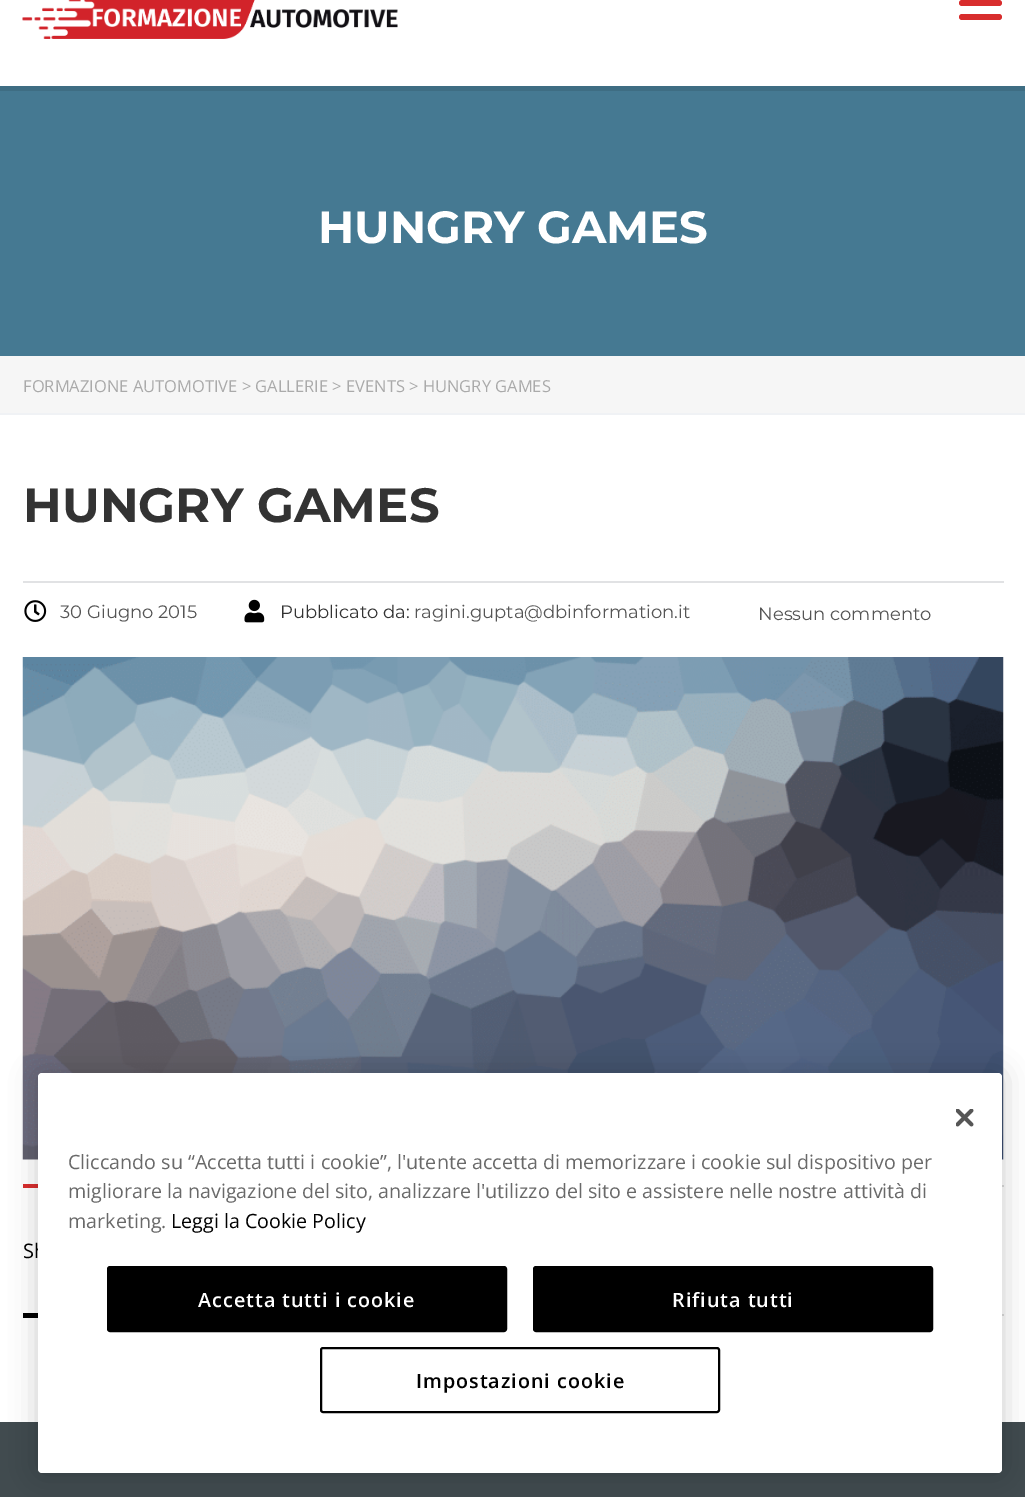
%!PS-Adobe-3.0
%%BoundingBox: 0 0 1025 1497
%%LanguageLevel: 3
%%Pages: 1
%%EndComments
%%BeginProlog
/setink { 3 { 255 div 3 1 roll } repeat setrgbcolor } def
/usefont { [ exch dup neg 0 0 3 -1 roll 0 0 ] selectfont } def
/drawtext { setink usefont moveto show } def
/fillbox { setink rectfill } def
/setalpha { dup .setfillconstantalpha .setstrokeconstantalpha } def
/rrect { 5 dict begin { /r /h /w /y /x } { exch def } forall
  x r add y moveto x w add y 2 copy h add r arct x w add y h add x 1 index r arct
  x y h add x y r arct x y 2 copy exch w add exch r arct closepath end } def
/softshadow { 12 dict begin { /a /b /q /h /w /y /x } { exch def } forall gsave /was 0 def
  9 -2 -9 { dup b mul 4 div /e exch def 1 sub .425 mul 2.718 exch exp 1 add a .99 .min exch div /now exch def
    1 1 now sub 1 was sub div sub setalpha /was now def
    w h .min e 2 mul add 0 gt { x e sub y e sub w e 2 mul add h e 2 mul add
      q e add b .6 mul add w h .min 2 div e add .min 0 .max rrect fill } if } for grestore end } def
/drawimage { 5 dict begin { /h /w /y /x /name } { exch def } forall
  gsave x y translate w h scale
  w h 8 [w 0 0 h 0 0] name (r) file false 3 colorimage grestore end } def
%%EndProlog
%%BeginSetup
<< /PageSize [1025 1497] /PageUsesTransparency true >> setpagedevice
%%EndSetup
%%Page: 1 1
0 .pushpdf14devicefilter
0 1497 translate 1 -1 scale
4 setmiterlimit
0 0 1025 1497 255 255 255 fillbox
(assets/img1.rgb) 22 0 376 39 drawimage
216 45 45 setink
959 0 43 6 3 rrect fill
959 14 43 6 3 rrect fill
0 86 1025 5 62 109 131 fillbox
0 91 1025 265 69 121 146 fillbox
(HUNGRY GAMES) 318 243 /Montserrat-Bold 45 255 255 255 drawtext
0 356 1025 57 246 246 246 fillbox
0 413 1025 2 240 242 245 fillbox
(FORMAZIONE AUTOMOTIVE > GALLERIE > EVENTS > HUNGRY GAMES) 23 392 /OpenSans-Regular 16.5 170 170 170 drawtext
23 581 981 2 225 226 228 fillbox
(HUNGRY GAMES) 23 522 /Montserrat-Bold 48 51 51 51 drawtext
(assets/img2.rgb) 24 600 23 22 drawimage
(30 Giugno 2015) 60 618 /Montserrat-Regular 18 85 85 85 drawtext
(assets/img3.rgb) 244 599 21 24 drawimage
(Pubblicato da:) 280 618 /Montserrat-Regular 18 51 51 51 drawtext
(ragini.gupta@dbinformation.it) 414 618 /Montserrat-Regular 18 85 85 85 drawtext
(Nessun commento) 758 620 /Montserrat-Regular 18 85 85 85 drawtext
(assets/img4.rgb) 22 657 982 503 drawimage
23 1184 15 4 216 45 45 fillbox
1002 1185 2 2 220 220 220 fillbox
(Sh) 23 1258 /OpenSans-Regular 20 0 0 0 drawtext
23 1313 15 5 0 0 0 fillbox
1002 1314 2 2 220 220 220 fillbox
0 1422 1025 75 65 75 79 fillbox
0 0 0 setink
38 1073 964 400 4 13.5 0.2 softshadow
255 255 255 setink
38 1073 964 400 4 rrect fill
(assets/img5.rgb) 956 1109 18 18 drawimage
(Cliccando su “Accetta tutti i cookie”, l'utente accetta di memorizzare i cookie sul dispositivo per) 68 1169 /OpenSans-Regular 19.7 105 105 105 drawtext
(migliorare la navigazione del sito, analizzare l'utilizzo del sito e assistere nelle nostre attività di) 68 1198 /OpenSans-Regular 19.7 105 105 105 drawtext
(marketing.) 68 1228 /OpenSans-Regular 19.7 105 105 105 drawtext
(Leggi la Cookie Policy) 171 1228 /OpenSans-Regular 19.7 0 0 0 drawtext
108 1267 398 64 2 rrect gsave fill grestore
2 setlinewidth
stroke
/OpenSans-SemiBold 19.7 usefont
255 255 255 setink
198 1307 moveto 1 0 (Accetta tutti i cookie) ashow
0 0 0 setink
534 1267 398 64 2 rrect gsave fill grestore
stroke
255 255 255 setink
672 1307 moveto 1 0 (Rifiuta tutti) ashow
0 0 0 setink
321 1348 398 64 2 rrect stroke
416 1388 moveto 1 0 (Impostazioni cookie) ashow
.poppdf14devicefilter showpage
%%EOF
